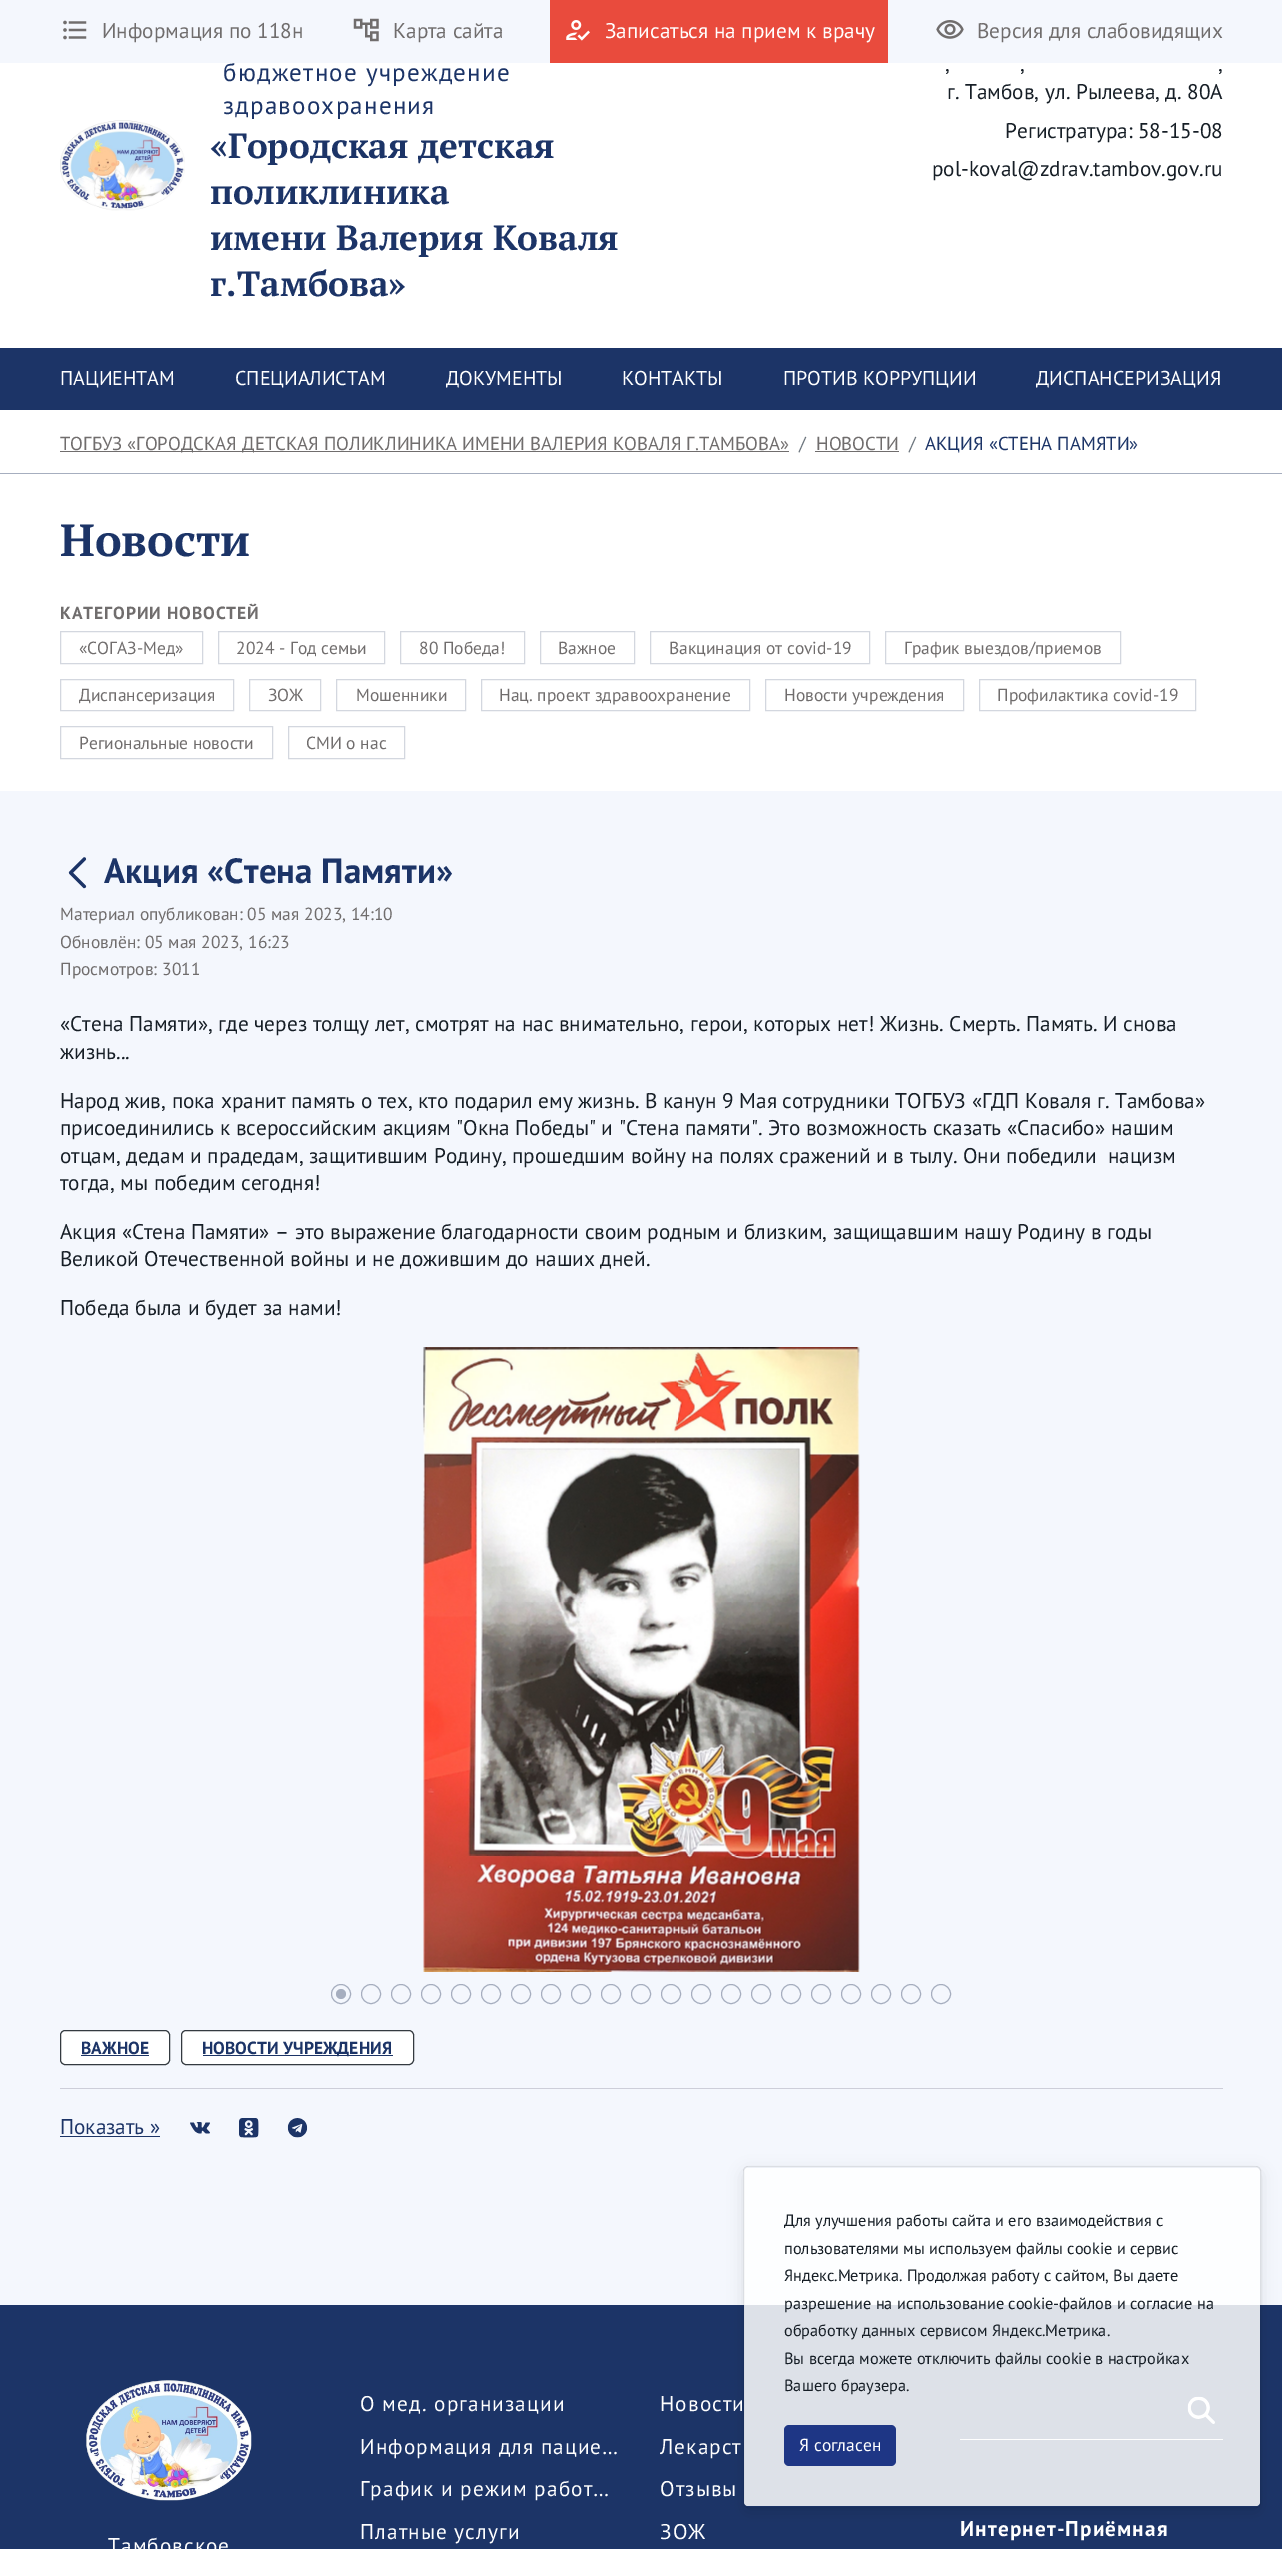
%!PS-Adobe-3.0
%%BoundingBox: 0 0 1282 2549
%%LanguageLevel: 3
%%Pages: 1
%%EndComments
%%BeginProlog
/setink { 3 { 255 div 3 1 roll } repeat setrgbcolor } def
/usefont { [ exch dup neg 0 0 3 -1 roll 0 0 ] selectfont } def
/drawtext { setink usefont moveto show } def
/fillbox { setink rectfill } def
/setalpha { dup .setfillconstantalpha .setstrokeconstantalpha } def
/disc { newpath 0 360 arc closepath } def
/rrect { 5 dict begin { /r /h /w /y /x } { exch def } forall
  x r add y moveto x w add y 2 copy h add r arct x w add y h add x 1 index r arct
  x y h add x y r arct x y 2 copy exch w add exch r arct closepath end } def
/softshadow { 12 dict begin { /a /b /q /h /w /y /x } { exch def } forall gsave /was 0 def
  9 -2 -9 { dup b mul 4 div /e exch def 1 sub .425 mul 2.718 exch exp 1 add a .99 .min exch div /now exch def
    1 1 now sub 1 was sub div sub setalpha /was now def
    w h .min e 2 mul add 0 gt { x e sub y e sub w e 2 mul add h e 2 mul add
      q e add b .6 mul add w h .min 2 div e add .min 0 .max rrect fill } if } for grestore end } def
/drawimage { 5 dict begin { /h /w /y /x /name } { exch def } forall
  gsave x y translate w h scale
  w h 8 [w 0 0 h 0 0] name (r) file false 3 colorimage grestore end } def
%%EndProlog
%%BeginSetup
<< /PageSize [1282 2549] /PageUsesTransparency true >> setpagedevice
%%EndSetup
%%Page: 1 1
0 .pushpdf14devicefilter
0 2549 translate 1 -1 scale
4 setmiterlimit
0 0 1282 2549 255 255 255 fillbox
/PTSans-Regular 25 usefont
28 52 103 setink
223 81 moveto 1.25 0 (бюджетное учреждение) ashow
0 0 1282 63 244 247 253 fillbox
(assets/img1.rgb) 63 20 24 20 drawimage
(Информация по 118н) 102 38 /PTSans-Regular 21.25 112 109 109 drawtext
(assets/img2.rgb) 353 18 26 24 drawimage
(Карта сайта) 393 38 /PTSans-Regular 21.25 112 109 109 drawtext
550 0 338 63 233 75 61 fillbox
(assets/img3.rgb) 566 20 24 21 drawimage
(Записаться на прием к врачу) 605 38 /PTSans-Regular 21.25 255 255 255 drawtext
(assets/img4.rgb) 936 20 28 19 drawimage
(Версия для слабовидящих) 977 38 /PTSans-Regular 21.25 112 109 109 drawtext
(assets/img5.rgb) 60 120 125 91 drawimage
/PTSans-Regular 25 usefont
28 52 103 setink
223 114 moveto 1.25 0 (здравоохранения) ashow
(«Городская детская) 210 158 /PTSerif-Bold 35 28 52 103 drawtext
(поликлиника) 210 204 /PTSerif-Bold 35 28 52 103 drawtext
(имени Валерия Коваля) 210 250 /PTSerif-Bold 35 28 52 103 drawtext
(г.Тамбова») 210 296 /PTSerif-Bold 35 28 52 103 drawtext
(,) 945 71 /PTSans-Regular 21.25 22 30 38 drawtext
(,) 1020 71 /PTSans-Regular 21.25 22 30 38 drawtext
(,) 1218 71 /PTSans-Regular 21.25 22 30 38 drawtext
(г. Тамбов, ул. Рылеева, д. 80А) 947 99 /PTSans-Regular 21.25 22 30 38 drawtext
(Регистратура: 58-15-08) 1005 138 /PTSans-Regular 21.25 22 30 38 drawtext
(pol-koval@zdrav.tambov.gov.ru) 932 176 /PTSans-Regular 21.25 22 30 38 drawtext
0 348 1282 62 28 52 103 fillbox
(ПАЦИЕНТАМ) 60 385 /PTSans-Regular 20 255 255 255 drawtext
(СПЕЦИАЛИСТАМ) 235 385 /PTSans-Regular 20 255 255 255 drawtext
(ДОКУМЕНТЫ) 446 385 /PTSans-Regular 20 255 255 255 drawtext
(КОНТАКТЫ) 622 385 /PTSans-Regular 20 255 255 255 drawtext
(ПРОТИВ КОРРУПЦИИ) 783 385 /PTSans-Regular 20 255 255 255 drawtext
(ДИСПАНСЕРИЗАЦИЯ) 1036 385 /PTSans-Regular 20 255 255 255 drawtext
0 473 1282 1 166 174 191 fillbox
60 451 729 1 112 109 109 fillbox
(ТОГБУЗ «ГОРОДСКАЯ ДЕТСКАЯ ПОЛИКЛИНИКА ИМЕНИ ВАЛЕРИЯ КОВАЛЯ Г.ТАМБОВА») 60 450 /PTSans-Regular 18.75 112 109 109 drawtext
(/) 799 450 /PTSans-Regular 18.75 108 117 125 drawtext
(НОВОСТИ) 816 450 /PTSans-Regular 18.75 112 109 109 drawtext
815 451 84 1 112 109 109 fillbox
(/) 909 450 /PTSans-Regular 18.75 108 117 125 drawtext
(АКЦИЯ «СТЕНА ПАМЯТИ») 925 450 /PTSans-Regular 18.75 28 52 103 drawtext
(Новости) 60 556 /PTSerif-Bold 45 28 52 103 drawtext
/PTSans-Bold 17.5 usefont
112 109 109 setink
60 619 moveto 0.9 0 (КАТЕГОРИИ НОВОСТЕЙ) ashow
211 215 223 setink
60.5 631.5 142 32 rectstroke
(«СОГАЗ-Мед») 79 654 /PTSans-Regular 17.5 112 109 109 drawtext
211 215 223 setink
218.5 631.5 166 32 rectstroke
(2024 - Год семьи) 236 654 /PTSans-Regular 17.5 112 109 109 drawtext
211 215 223 setink
400.5 631.5 124 32 rectstroke
(80 Победа!) 419 654 /PTSans-Regular 17.5 112 109 109 drawtext
211 215 223 setink
540.5 631.5 94 32 rectstroke
(Важное) 558 654 /PTSans-Regular 17.5 112 109 109 drawtext
211 215 223 setink
650.5 631.5 219 32 rectstroke
(Вакцинация от covid-19) 669 654 /PTSans-Regular 17.5 112 109 109 drawtext
211 215 223 setink
885.5 631.5 235 32 rectstroke
(График выездов/приемов) 904 654 /PTSans-Regular 17.5 112 109 109 drawtext
211 215 223 setink
60.5 679.5 173 31 rectstroke
(Диспансеризация) 79 701 /PTSans-Regular 17.5 112 109 109 drawtext
211 215 223 setink
249.5 679.5 71 31 rectstroke
(ЗОЖ) 268 701 /PTSans-Regular 17.5 112 109 109 drawtext
211 215 223 setink
336.5 679.5 129 31 rectstroke
(Мошенники) 356 701 /PTSans-Regular 17.5 112 109 109 drawtext
211 215 223 setink
481.5 679.5 268 31 rectstroke
(Нац. проект здравоохранение) 499 701 /PTSans-Regular 17.5 112 109 109 drawtext
211 215 223 setink
765.5 679.5 198 31 rectstroke
(Новости учреждения) 784 701 /PTSans-Regular 17.5 112 109 109 drawtext
211 215 223 setink
979.5 679.5 216 31 rectstroke
(Профилактика covid-19) 997 701 /PTSans-Regular 17.5 112 109 109 drawtext
211 215 223 setink
60.5 726.5 212 32 rectstroke
(Региональные новости) 79 749 /PTSans-Regular 17.5 112 109 109 drawtext
211 215 223 setink
288.5 726.5 116 32 rectstroke
(СМИ о нас) 306 749 /PTSans-Regular 17.5 112 109 109 drawtext
0 791 1282 1514 244 247 253 fillbox
(assets/img6.rgb) 68 857 19 32 drawimage
(Акция «Стена Памяти») 104 883 /PTSans-Bold 35 28 52 103 drawtext
(Материал опубликован: 05 мая 2023, 14:10) 60 920 /PTSans-Regular 17.5 112 109 109 drawtext
(Обновлён: 05 мая 2023, 16:23) 60 948 /PTSans-Regular 17.5 112 109 109 drawtext
(Просмотров: 3011) 60 975 /PTSans-Regular 17.5 112 109 109 drawtext
(«Стена Памяти», где через толщу лет, смотрят на нас внимательно, герои, которых нет! Жизнь. Смерть. Память. И снова) 60 1031 /PTSans-Regular 21.25 22 30 38 drawtext
(жизнь...) 60 1059 /PTSans-Regular 21.25 22 30 38 drawtext
(Народ жив, пока хранит память о тех, кто подарил ему жизнь. В канун 9 Мая сотрудники ТОГБУЗ «ГДП Коваля г. Тамбова») 60 1108 /PTSans-Regular 21.25 22 30 38 drawtext
(присоединились к всероссийским акциям "Окна Победы" и "Стена памяти". Это возможность сказать «Спасибо» нашим) 60 1135 /PTSans-Regular 21.25 22 30 38 drawtext
(отцам, дедам и прадедам, защитившим Родину, прошедшим войну на полях сражений и в тылу. Они победили  нацизм) 60 1163 /PTSans-Regular 21.25 22 30 38 drawtext
(тогда, мы победим сегодня!) 60 1190 /PTSans-Regular 21.25 22 30 38 drawtext
(Акция «Стена Памяти» – это выражение благодарности своим родным и близким, защищавшим нашу Родину в годы) 60 1239 /PTSans-Regular 21.25 22 30 38 drawtext
(Великой Отечественной войны и не дожившим до наших дней.) 60 1266 /PTSans-Regular 21.25 22 30 38 drawtext
(Победа была и будет за нами!) 60 1315 /PTSans-Regular 21.25 22 30 38 drawtext
(assets/img7.rgb) 423 1347 437 625 drawimage
166 174 191 setink
341 1994 9.5 disc stroke
341 1994 5 disc fill
371 1994 9.5 disc stroke
401 1994 9.5 disc stroke
431 1994 9.5 disc stroke
461 1994 9.5 disc stroke
491 1994 9.5 disc stroke
521 1994 9.5 disc stroke
551 1994 9.5 disc stroke
581 1994 9.5 disc stroke
611 1994 9.5 disc stroke
641 1994 9.5 disc stroke
671 1994 9.5 disc stroke
701 1994 9.5 disc stroke
731 1994 9.5 disc stroke
761 1994 9.5 disc stroke
791 1994 9.5 disc stroke
821 1994 9.5 disc stroke
851 1994 9.5 disc stroke
881 1994 9.5 disc stroke
911 1994 9.5 disc stroke
941 1994 9.5 disc stroke
255 255 255 setink
60.5 2030.5 109 34 4.5 rrect gsave fill grestore
52 58 64 setink
stroke
(ВАЖНОЕ) 81 2054 /PTSans-Bold 17.5 28 52 103 drawtext
81 2055 68 1 28 52 103 fillbox
255 255 255 setink
181.5 2030.5 232 34 4.5 rrect gsave fill grestore
52 58 64 setink
stroke
203 2055 190 1 28 52 103 fillbox
(НОВОСТИ УЧРЕЖДЕНИЯ) 202 2054 /PTSans-Bold 17.5 28 52 103 drawtext
60 2088 1163 1 205 206 217 fillbox
(Показать ») 60 2134 /PTSans-Regular 21.25 28 52 103 drawtext
60 2136 100 1 28 52 103 fillbox
(assets/img8.rgb) 190 2122 20 12 drawimage
(assets/img9.rgb) 239 2118 20 20 drawimage
(assets/img10.rgb) 287 2118 21 20 drawimage
0 2305 1282 244 28 52 103 fillbox
960 2439 263 1 255 255 255 fillbox
gsave
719 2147 moveto 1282 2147 lineto 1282 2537 lineto 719 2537 lineto closepath 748 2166 moveto 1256 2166 lineto 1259 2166 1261 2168 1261 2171 curveto 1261 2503 lineto 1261 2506 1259 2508 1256 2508 curveto 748 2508 lineto 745 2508 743 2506 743 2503 curveto 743 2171 lineto 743 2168 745 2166 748 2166 curveto closepath eoclip newpath
0 0 0 setink
743 2171 518 342 5 7.5 0.1 softshadow
grestore
0.85 setalpha
744 2168 516 338 4 rrect fill
0.1 setalpha
0 0 0 setink
743.5 2166.5 517 341 4.5 rrect stroke
1 setalpha
(Для улучшения работы сайта и его взаимодействия с) 784 2226 /PTSans-Regular 16.25 22 30 38 drawtext
(пользователями мы используем файлы cookie и сервис) 784 2254 /PTSans-Regular 16.25 22 30 38 drawtext
(Яндекс.Метрика. Продолжая работу с сайтом, Вы даете) 784 2281 /PTSans-Regular 16.25 22 30 38 drawtext
(разрешение на использование cookie-файлов и согласие на) 784 2309 /PTSans-Regular 16.25 22 30 38 drawtext
(обработку данных сервисом Яндекс.Метрика.) 784 2336 /PTSans-Regular 16.25 22 30 38 drawtext
(Вы всегда можете отключить файлы cookie в настройках) 784 2364 /PTSans-Regular 16.25 22 30 38 drawtext
(Вашего браузера.) 784 2391 /PTSans-Regular 16.25 22 30 38 drawtext
30 54 133 setink
784 2425 112 41 5 rrect fill
(Я согласен) 799 2451 /PTSans-Regular 17.5 255 255 255 drawtext
/PTSans-Regular 21.25 usefont
360 2411 moveto 1.1 0 (О мед. организации) ashow
360 2454 moveto 1.1 0 (Информация для пацие…) ashow
360 2496 moveto 1.1 0 (График и режим работ…) ashow
360 2539 moveto 1.1 0 (Платные услуги) ashow
660 2411 moveto 1.1 0 (Новости) ashow
660 2454 moveto 1.1 0 (Лекарст) ashow
660 2496 moveto 1.1 0 (Отзывы) ashow
660 2539 moveto 1.1 0 (ЗОЖ) ashow
(assets/img11.rgb) 1187 2396 28 28 drawimage
/PTSans-Bold 21.25 usefont
960 2536 moveto 1.1 0 (Интернет-Приёмная) ashow
(assets/img12.rgb) 86 2380 166 121 drawimage
/PTSans-Regular 21.25 usefont
108 2553 moveto 1.1 0 (Тамбовское) ashow
.poppdf14devicefilter showpage
%%EOF
